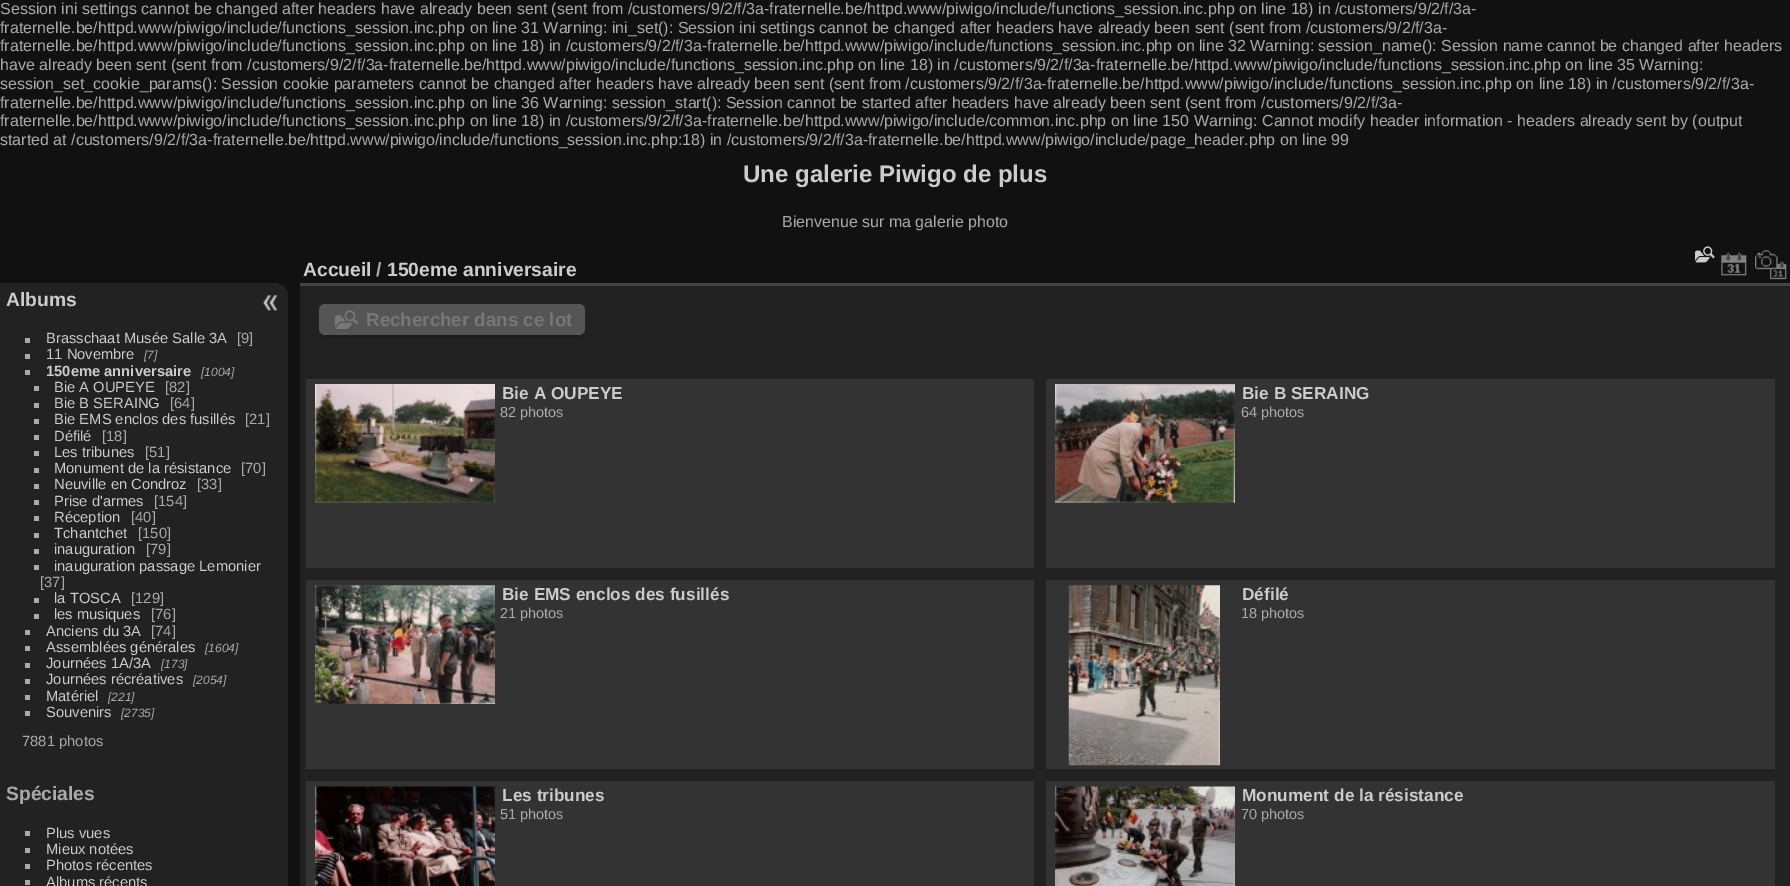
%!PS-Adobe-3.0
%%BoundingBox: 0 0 1790 886
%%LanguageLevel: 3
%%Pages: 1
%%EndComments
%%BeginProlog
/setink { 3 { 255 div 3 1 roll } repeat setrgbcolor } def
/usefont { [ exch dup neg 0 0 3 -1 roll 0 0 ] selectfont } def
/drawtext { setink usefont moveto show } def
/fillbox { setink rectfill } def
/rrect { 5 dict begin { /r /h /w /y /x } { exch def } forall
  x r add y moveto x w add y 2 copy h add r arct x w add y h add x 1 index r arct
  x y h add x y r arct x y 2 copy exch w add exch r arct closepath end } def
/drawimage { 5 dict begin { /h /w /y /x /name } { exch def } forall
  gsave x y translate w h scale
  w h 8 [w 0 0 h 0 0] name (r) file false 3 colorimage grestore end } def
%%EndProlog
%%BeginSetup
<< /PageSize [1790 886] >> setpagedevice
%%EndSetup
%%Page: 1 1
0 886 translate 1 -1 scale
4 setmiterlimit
0 0 1790 886 17 17 17 fillbox
(Session ini settings cannot be changed after headers have already been sent \(sent from /customers/9/2/f/3a-fraternelle.be/httpd.www/piwigo/include/functions_session.inc.php on line 18\) in /customers/9/2/f/3a-) 0 14 /LiberationSans-Regular 16 170 170 170 drawtext
(fraternelle.be/httpd.www/piwigo/include/functions_session.inc.php on line 31 Warning: ini_set\(\): Session ini settings cannot be changed after headers have already been sent \(sent from /customers/9/2/f/3a-) 0 33 /LiberationSans-Regular 16 170 170 170 drawtext
(fraternelle.be/httpd.www/piwigo/include/functions_session.inc.php on line 18\) in /customers/9/2/f/3a-fraternelle.be/httpd.www/piwigo/include/functions_session.inc.php on line 32) 0 51 /LiberationSans-Regular 16 170 170 170 drawtext
(Warning: session_name\(\): Session name cannot be changed after headers) 1250 51 /LiberationSans-Regular 16 170 170 170 drawtext
(have already been sent \(sent from /customers/9/2/f/3a-fraternelle.be/httpd.www/piwigo/include/functions_session.inc.php on line 18\) in /customers/9/2/f/3a-fraternelle.be/httpd.www/piwigo/include/functions_session.inc.php on line 35 Warning:) 0 70 /LiberationSans-Regular 16 170 170 170 drawtext
(session_set_cookie_params\(\): Session cookie parameters cannot be changed after headers have already been sent \(sent from /customers/9/2/f/3a-fraternelle.be/httpd.www/piwigo/include/functions_session.inc.php on line 18\) in /customers/9/2/f/3a-) 0 89 /LiberationSans-Regular 16 170 170 170 drawtext
(fraternelle.be/httpd.www/piwigo/include/functions_session.inc.php on line 36 Warning: session_start\(\): Session cannot be started after headers have already been sent \(sent from /customers/9/2/f/3a-) 0 108 /LiberationSans-Regular 16 170 170 170 drawtext
(fraternelle.be/httpd.www/piwigo/include/functions_session.inc.php on line 18\) in /customers/9/2/f/3a-fraternelle.be/httpd.www/piwigo/include/common.inc.php on line 150 Warning: Cannot modify header information - headers already sent by \(output) 0 126 /LiberationSans-Regular 16 170 170 170 drawtext
(started at /customers/9/2/f/3a-fraternelle.be/httpd.www/piwigo/include/functions_session.inc.php:18\) in /customers/9/2/f/3a-fraternelle.be/httpd.www/piwigo/include/page_header.php on line 99) 0 145 /LiberationSans-Regular 16 170 170 170 drawtext
(Une galerie Piwigo de plus) 743 182 /LiberationSans-Bold 24 204 204 204 drawtext
(Bienvenue sur ma galerie photo) 782 227 /LiberationSans-Regular 16 170 170 170 drawtext
34 34 34 setink
0 283 moveto 275 283 lineto 282 283 288 289 288 296 curveto 288 886 lineto 288 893 282 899 275 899 curveto 0 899 lineto closepath fill
(Albums) 6 306 /LiberationSans-Bold 19.25 204 204 204 drawtext
25 338 5 5 170 170 170 fillbox
(Brasschaat Musée Salle 3A) 46 343 /LiberationSans-Regular 14.75 204 204 204 drawtext
([9]) 237 343 /LiberationSans-Regular 14.75 170 170 170 drawtext
25 354 5 5 170 170 170 fillbox
(11 Novembre) 46 359 /LiberationSans-Regular 14.75 204 204 204 drawtext
([7]) 144 359 /LiberationSans-Italic 12 170 170 170 drawtext
25 370 5 5 170 170 170 fillbox
(150eme anniversaire) 46 376 /LiberationSans-Bold 14.75 204 204 204 drawtext
([1004]) 201 376 /LiberationSans-Italic 12 170 170 170 drawtext
34 386 5 5 170 170 170 fillbox
(Bie A OUPEYE) 54 392 /LiberationSans-Regular 14.75 204 204 204 drawtext
([82]) 165 392 /LiberationSans-Regular 14.75 170 170 170 drawtext
34 403 5 5 170 170 170 fillbox
(Bie B SERAING) 54 408 /LiberationSans-Regular 14.75 204 204 204 drawtext
([64]) 170 408 /LiberationSans-Regular 14.75 170 170 170 drawtext
34 419 5 5 170 170 170 fillbox
(Bie EMS enclos des fusillés) 54 424 /LiberationSans-Regular 14.75 204 204 204 drawtext
([21]) 245 424 /LiberationSans-Regular 14.75 170 170 170 drawtext
34 435 5 5 170 170 170 fillbox
(Défilé) 54 441 /LiberationSans-Regular 14.75 204 204 204 drawtext
([18]) 102 441 /LiberationSans-Regular 14.75 170 170 170 drawtext
34 451 5 5 170 170 170 fillbox
(Les tribunes) 54 457 /LiberationSans-Regular 14.75 204 204 204 drawtext
([51]) 145 457 /LiberationSans-Regular 14.75 170 170 170 drawtext
34 468 5 5 170 170 170 fillbox
(Monument de la résistance) 54 473 /LiberationSans-Regular 14.75 204 204 204 drawtext
([70]) 241 473 /LiberationSans-Regular 14.75 170 170 170 drawtext
34 484 5 5 170 170 170 fillbox
(Neuville en Condroz) 54 489 /LiberationSans-Regular 14.75 204 204 204 drawtext
([33]) 197 489 /LiberationSans-Regular 14.75 170 170 170 drawtext
34 500 5 5 170 170 170 fillbox
(Prise d'armes) 54 506 /LiberationSans-Regular 14.75 204 204 204 drawtext
([154]) 154 506 /LiberationSans-Regular 14.75 170 170 170 drawtext
34 516 5 5 170 170 170 fillbox
(Réception) 54 522 /LiberationSans-Regular 14.75 204 204 204 drawtext
([40]) 131 522 /LiberationSans-Regular 14.75 170 170 170 drawtext
34 533 5 5 170 170 170 fillbox
(Tchantchet) 54 538 /LiberationSans-Regular 14.75 204 204 204 drawtext
([150]) 138 538 /LiberationSans-Regular 14.75 170 170 170 drawtext
34 549 5 5 170 170 170 fillbox
(inauguration) 54 554 /LiberationSans-Regular 14.75 204 204 204 drawtext
([79]) 146 554 /LiberationSans-Regular 14.75 170 170 170 drawtext
34 565 5 5 170 170 170 fillbox
(inauguration passage Lemonier) 54 571 /LiberationSans-Regular 14.75 204 204 204 drawtext
([37]) 40 587 /LiberationSans-Regular 14.75 170 170 170 drawtext
34 598 5 5 170 170 170 fillbox
(la TOSCA) 54 603 /LiberationSans-Regular 14.75 204 204 204 drawtext
([129]) 131 603 /LiberationSans-Regular 14.75 170 170 170 drawtext
34 614 5 5 170 170 170 fillbox
(les musiques) 54 619 /LiberationSans-Regular 14.75 204 204 204 drawtext
([76]) 151 619 /LiberationSans-Regular 14.75 170 170 170 drawtext
25 630 5 5 170 170 170 fillbox
(Anciens du 3A) 46 636 /LiberationSans-Regular 14.75 204 204 204 drawtext
([74]) 151 636 /LiberationSans-Regular 14.75 170 170 170 drawtext
25 646 5 5 170 170 170 fillbox
(Assemblées générales) 46 652 /LiberationSans-Regular 14.75 204 204 204 drawtext
([1604]) 205 652 /LiberationSans-Italic 12 170 170 170 drawtext
25 663 5 5 170 170 170 fillbox
(Journées 1A/3A) 46 668 /LiberationSans-Regular 14.75 204 204 204 drawtext
([173]) 161 668 /LiberationSans-Italic 12 170 170 170 drawtext
25 679 5 5 170 170 170 fillbox
(Journées récréatives) 46 684 /LiberationSans-Regular 14.75 204 204 204 drawtext
([2054]) 193 684 /LiberationSans-Italic 12 170 170 170 drawtext
25 695 5 5 170 170 170 fillbox
(Matériel) 46 701 /LiberationSans-Regular 14.75 204 204 204 drawtext
([221]) 108 701 /LiberationSans-Italic 12 170 170 170 drawtext
25 711 5 5 170 170 170 fillbox
(Souvenirs) 46 717 /LiberationSans-Regular 14.75 204 204 204 drawtext
([2735]) 121 717 /LiberationSans-Italic 12 170 170 170 drawtext
(7881 photos) 22 746 /LiberationSans-Regular 14.75 170 170 170 drawtext
(Spéciales) 6 800 /LiberationSans-Bold 19.25 170 170 170 drawtext
25 831 5 5 170 170 170 fillbox
(Plus vues) 46 838 /LiberationSans-Regular 14.75 204 204 204 drawtext
25 848 5 5 170 170 170 fillbox
(Mieux notées) 46 854 /LiberationSans-Regular 14.75 204 204 204 drawtext
25 864 5 5 170 170 170 fillbox
(Photos récentes) 46 870 /LiberationSans-Regular 14.75 204 204 204 drawtext
25 880 5 5 170 170 170 fillbox
(Albums récents) 46 887 /LiberationSans-Regular 14.75 204 204 204 drawtext
(assets/img1.rgb) 262 295 16 16 drawimage
300 286 1490 600 34 34 34 fillbox
300 283 1490 3 68 68 68 fillbox
(Accueil) 303 276 /LiberationSans-Bold 19.25 204 204 204 drawtext
(/) 376 276 /LiberationSans-Bold 19.25 170 170 170 drawtext
(150eme anniversaire) 387 276 /LiberationSans-Bold 19.25 204 204 204 drawtext
(assets/img2.rgb) 1695 246 20 17 drawimage
(assets/img3.rgb) 1721 252 26 24 drawimage
(assets/img4.rgb) 1755 250 32 30 drawimage
29 29 29 setink
319 331 moveto 319 332 lineto 319 335 322 338 325 338 curveto 579 338 lineto 582 338 585 335 585 332 curveto 585 329 lineto 585 332 582 335 579 335 curveto 325 335 lineto 322 335 320 333 319 331 curveto closepath fill
85 85 85 setink
319 304 266 31 6 rrect fill
(assets/img5.rgb) 335 310 23 19 drawimage
(Rechercher dans ce lot) 366 326 /LiberationSans-Bold 18.75 119 119 119 drawtext
306 379 728 189 51 51 51 fillbox
(assets/img6.rgb) 315 384 180 119 drawimage
(Bie A OUPEYE) 502 399 /LiberationSans-Bold 17.25 204 204 204 drawtext
(82 photos) 500 417 /LiberationSans-Regular 14.5 170 170 170 drawtext
1046 379 729 189 51 51 51 fillbox
(assets/img7.rgb) 1055 384 180 119 drawimage
(Bie B SERAING) 1242 399 /LiberationSans-Bold 17.25 204 204 204 drawtext
(64 photos) 1241 417 /LiberationSans-Regular 14.5 170 170 170 drawtext
306 580 728 189 51 51 51 fillbox
(assets/img8.rgb) 315 585 180 119 drawimage
(Bie EMS enclos des fusillés) 502 600 /LiberationSans-Bold 17.25 204 204 204 drawtext
(21 photos) 500 618 /LiberationSans-Regular 14.5 170 170 170 drawtext
1046 580 729 189 51 51 51 fillbox
(assets/img9.rgb) 1068 585 152 181 drawimage
(Défilé) 1242 600 /LiberationSans-Bold 17.25 204 204 204 drawtext
(18 photos) 1241 618 /LiberationSans-Regular 14.5 170 170 170 drawtext
306 781 728 105 51 51 51 fillbox
(assets/img10.rgb) 315 786 180 100 drawimage
(Les tribunes) 502 801 /LiberationSans-Bold 17.25 204 204 204 drawtext
(51 photos) 500 819 /LiberationSans-Regular 14.5 170 170 170 drawtext
1046 781 729 105 51 51 51 fillbox
(assets/img11.rgb) 1055 786 180 100 drawimage
(Monument de la résistance) 1242 801 /LiberationSans-Bold 17.25 204 204 204 drawtext
(70 photos) 1241 819 /LiberationSans-Regular 14.5 170 170 170 drawtext
showpage
%%EOF
